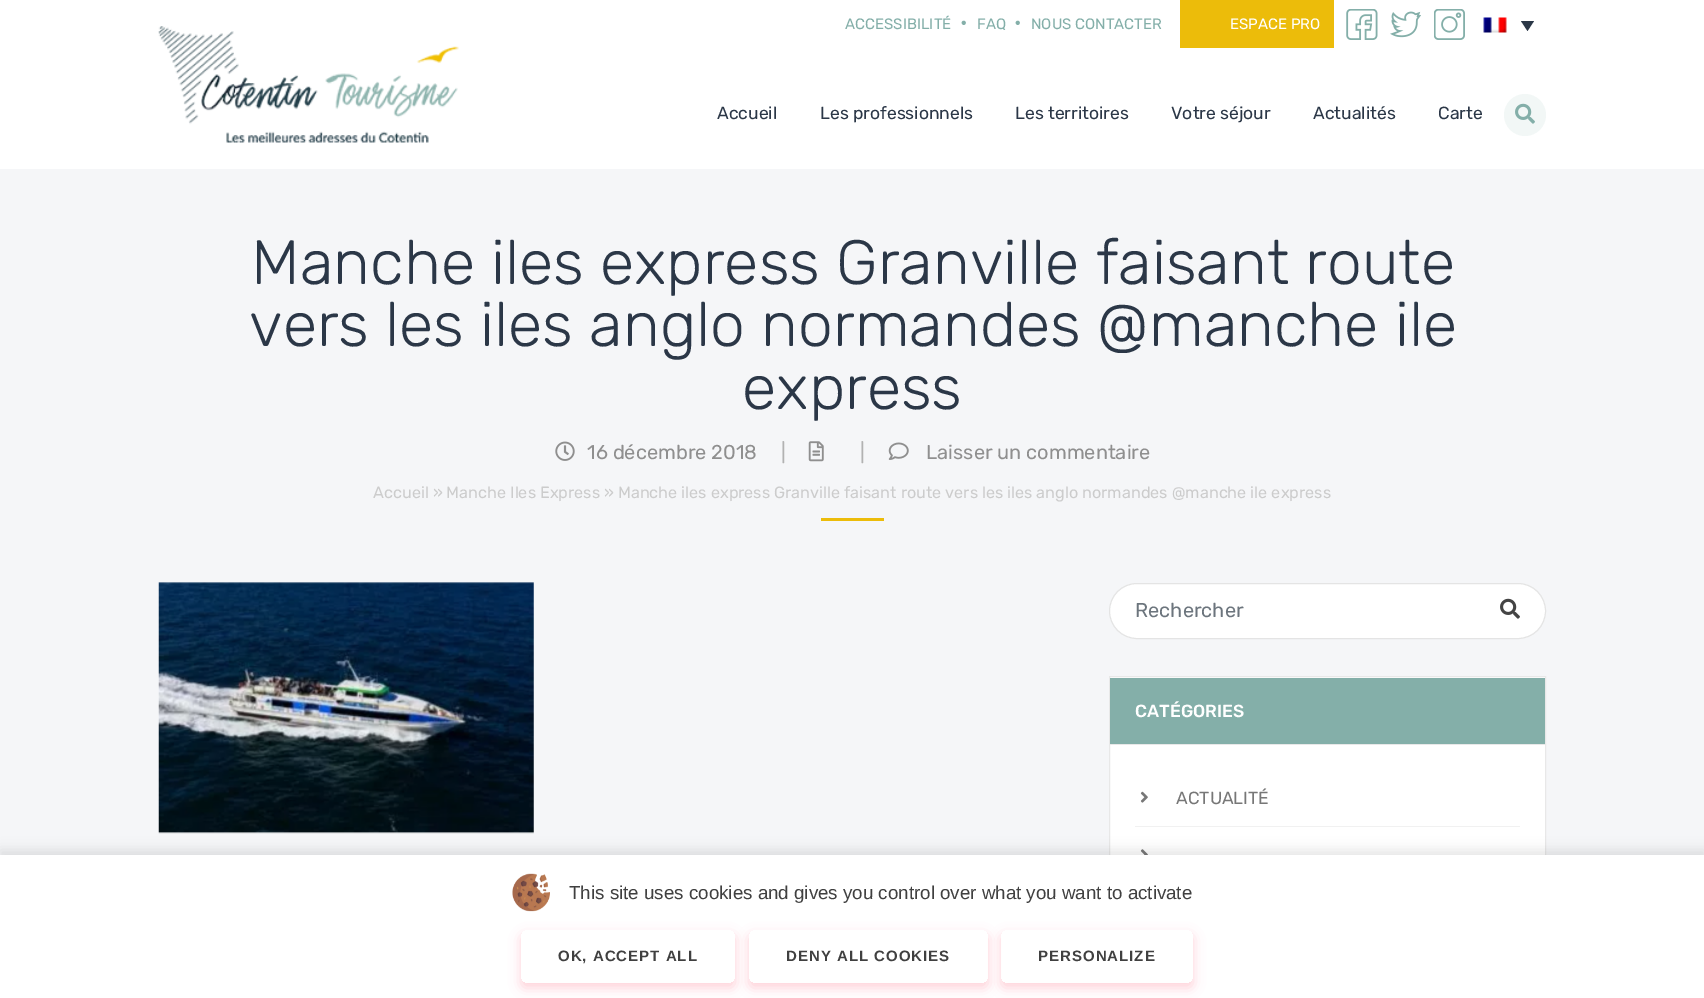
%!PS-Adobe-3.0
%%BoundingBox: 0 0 1704 998
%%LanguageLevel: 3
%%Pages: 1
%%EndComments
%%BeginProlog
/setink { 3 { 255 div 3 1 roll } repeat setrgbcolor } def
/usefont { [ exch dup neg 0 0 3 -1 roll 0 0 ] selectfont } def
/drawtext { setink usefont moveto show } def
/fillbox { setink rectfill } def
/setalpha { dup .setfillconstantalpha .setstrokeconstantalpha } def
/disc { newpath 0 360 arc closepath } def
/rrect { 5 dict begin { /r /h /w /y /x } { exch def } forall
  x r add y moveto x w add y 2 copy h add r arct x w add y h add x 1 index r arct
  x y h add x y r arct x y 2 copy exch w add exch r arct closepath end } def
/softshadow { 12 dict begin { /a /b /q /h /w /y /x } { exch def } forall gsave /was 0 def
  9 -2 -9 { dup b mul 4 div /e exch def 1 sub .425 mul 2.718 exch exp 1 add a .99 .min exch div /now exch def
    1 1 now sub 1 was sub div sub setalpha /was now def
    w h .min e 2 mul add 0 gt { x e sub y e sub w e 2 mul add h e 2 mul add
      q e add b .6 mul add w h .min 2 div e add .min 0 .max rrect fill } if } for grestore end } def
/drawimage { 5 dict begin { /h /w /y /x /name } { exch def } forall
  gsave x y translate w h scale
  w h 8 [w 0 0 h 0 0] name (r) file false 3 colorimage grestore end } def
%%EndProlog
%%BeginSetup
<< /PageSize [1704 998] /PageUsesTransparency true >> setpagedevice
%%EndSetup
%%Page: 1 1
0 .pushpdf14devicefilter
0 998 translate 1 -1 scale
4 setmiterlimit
0 0 1704 998 255 255 255 fillbox
0 169 1704 686 245 246 248 fillbox
(assets/img1.rgb) 158 26 301 117 drawimage
(ACCESSIBILITÉ) 845 29 /Rubik-Regular 15 132 175 169 drawtext
(•) 960 29 /Rubik-Regular 20 132 175 169 drawtext
(FAQ) 977 29 /Rubik-Regular 15 132 175 169 drawtext
(•) 1014 29 /Rubik-Regular 20 132 175 169 drawtext
(NOUS CONTACTER) 1031 29 /Rubik-Regular 15 132 175 169 drawtext
1180 0 154 48 236 188 10 fillbox
(ESPACE PRO) 1230 29 /Rubik-Regular 15 255 255 255 drawtext
(assets/img2.rgb) 1346 9 32 31 drawimage
(assets/img3.rgb) 1390 11 31 27 drawimage
(assets/img4.rgb) 1434 9 31 31 drawimage
(assets/img5.rgb) 1483 17 24 16 drawimage
43 55 71 setink
1521 21 moveto 1534 21 lineto 1527.5 31 lineto closepath fill
(Accueil) 717 119 /Rubik-Regular 17.5 43 55 71 drawtext
(Les professionnels) 820 119 /Rubik-Regular 17.5 43 55 71 drawtext
(Les territoires) 1015 119 /Rubik-Regular 17.5 43 55 71 drawtext
(Votre séjour) 1171 119 /Rubik-Regular 17.5 43 55 71 drawtext
(Actualités) 1313 119 /Rubik-Regular 17.5 43 55 71 drawtext
(Carte) 1438 119 /Rubik-Regular 17.5 43 55 71 drawtext
242 247 246 setink
1525 115 21 disc fill
(assets/img6.rgb) 1515 103 20 21 drawimage
(Manche iles express Granville faisant route) 251 284 /Rubik-Light 62.5 43 55 71 drawtext
(vers les iles anglo normandes @manche ile) 249 346 /Rubik-Light 62.5 43 55 71 drawtext
(express) 742 409 /Rubik-Light 62.5 43 55 71 drawtext
(assets/img7.rgb) 555 441 20 20 drawimage
(16 décembre 2018) 587 459 /Rubik-Regular 20 143 143 143 drawtext
(|) 781 459 /Rubik-Regular 20 178 178 178 drawtext
(assets/img8.rgb) 808 441 16 21 drawimage
(|) 860 459 /Rubik-Regular 20 178 178 178 drawtext
(assets/img9.rgb) 888 442 21 18 drawimage
(Laisser un commentaire) 926 459 /Rubik-Regular 20 143 143 143 drawtext
(Accueil » Manche Iles Express » Manche iles express Granville faisant route vers les iles anglo normandes @manche ile express) 373 498 /Rubik-Regular 16.25 204 204 204 drawtext
821 518 63 3 236 188 10 fillbox
(assets/img10.rgb) 158 582 376 252 drawimage
255 255 255 setink
1109.5 583.5 436 55 27.5 rrect gsave fill grestore
228 228 228 setink
stroke
(Rechercher) 1135 617 /Rubik-Regular 20 108 117 125 drawtext
(assets/img11.rgb) 1500 598 20 21 drawimage
1110 677 435 178 255 255 255 fillbox
232 232 232 setink
1109.5 676.5 436 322 rectstroke
1110 678 435 66 132 175 169 fillbox
1110 744 435 1 232 232 232 fillbox
(CATÉGORIES) 1135 717 /Rubik-Medium 17.5 255 255 255 drawtext
1135 826 385 1 241 241 241 fillbox
(assets/img12.rgb) 1140 791 8 12 drawimage
(ACTUALITÉ) 1176 804 /Rubik-Regular 17.5 119 119 119 drawtext
(assets/img13.rgb) 1140 849 8 6 drawimage
0 0 0 setink
0 850 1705 144 0 6 0.1 softshadow
0 855 1704 143 255 255 255 fillbox
(assets/img14.rgb) 512 873 38 39 drawimage
(This site uses cookies and gives you control over what you want to activate) 569 899 /LiberationSans-Regular 18.75 64 64 64 drawtext
gsave
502 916 moveto 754 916 lineto 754 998 lineto 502 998 lineto closepath 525 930 moveto 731 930 lineto 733 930 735 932 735 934 curveto 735 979 lineto 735 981 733 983 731 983 curveto 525 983 lineto 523 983 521 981 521 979 curveto 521 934 lineto 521 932 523 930 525 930 curveto closepath eoclip newpath
254 62 84 setink
521 935 214 53 4 6 0.24 softshadow
grestore
/LiberationSans-Bold 15 usefont
558 961 moveto 1 0 (OK, ACCEPT ALL) ashow
gsave
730 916 moveto 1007 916 lineto 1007 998 lineto 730 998 lineto closepath 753 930 moveto 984 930 lineto 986 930 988 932 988 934 curveto 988 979 lineto 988 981 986 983 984 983 curveto 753 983 lineto 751 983 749 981 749 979 curveto 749 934 lineto 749 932 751 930 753 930 curveto closepath eoclip newpath
254 62 84 setink
749 935 239 53 4 6 0.24 softshadow
grestore
786 961 moveto 1 0 (DENY ALL COOKIES) ashow
gsave
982 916 moveto 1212 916 lineto 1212 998 lineto 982 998 lineto closepath 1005 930 moveto 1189 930 lineto 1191 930 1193 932 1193 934 curveto 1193 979 lineto 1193 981 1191 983 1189 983 curveto 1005 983 lineto 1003 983 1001 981 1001 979 curveto 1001 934 lineto 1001 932 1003 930 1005 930 curveto closepath eoclip newpath
254 62 84 setink
1001 935 192 53 4 6 0.24 softshadow
grestore
1038 961 moveto 1 0 (PERSONALIZE) ashow
.poppdf14devicefilter showpage
%%EOF
